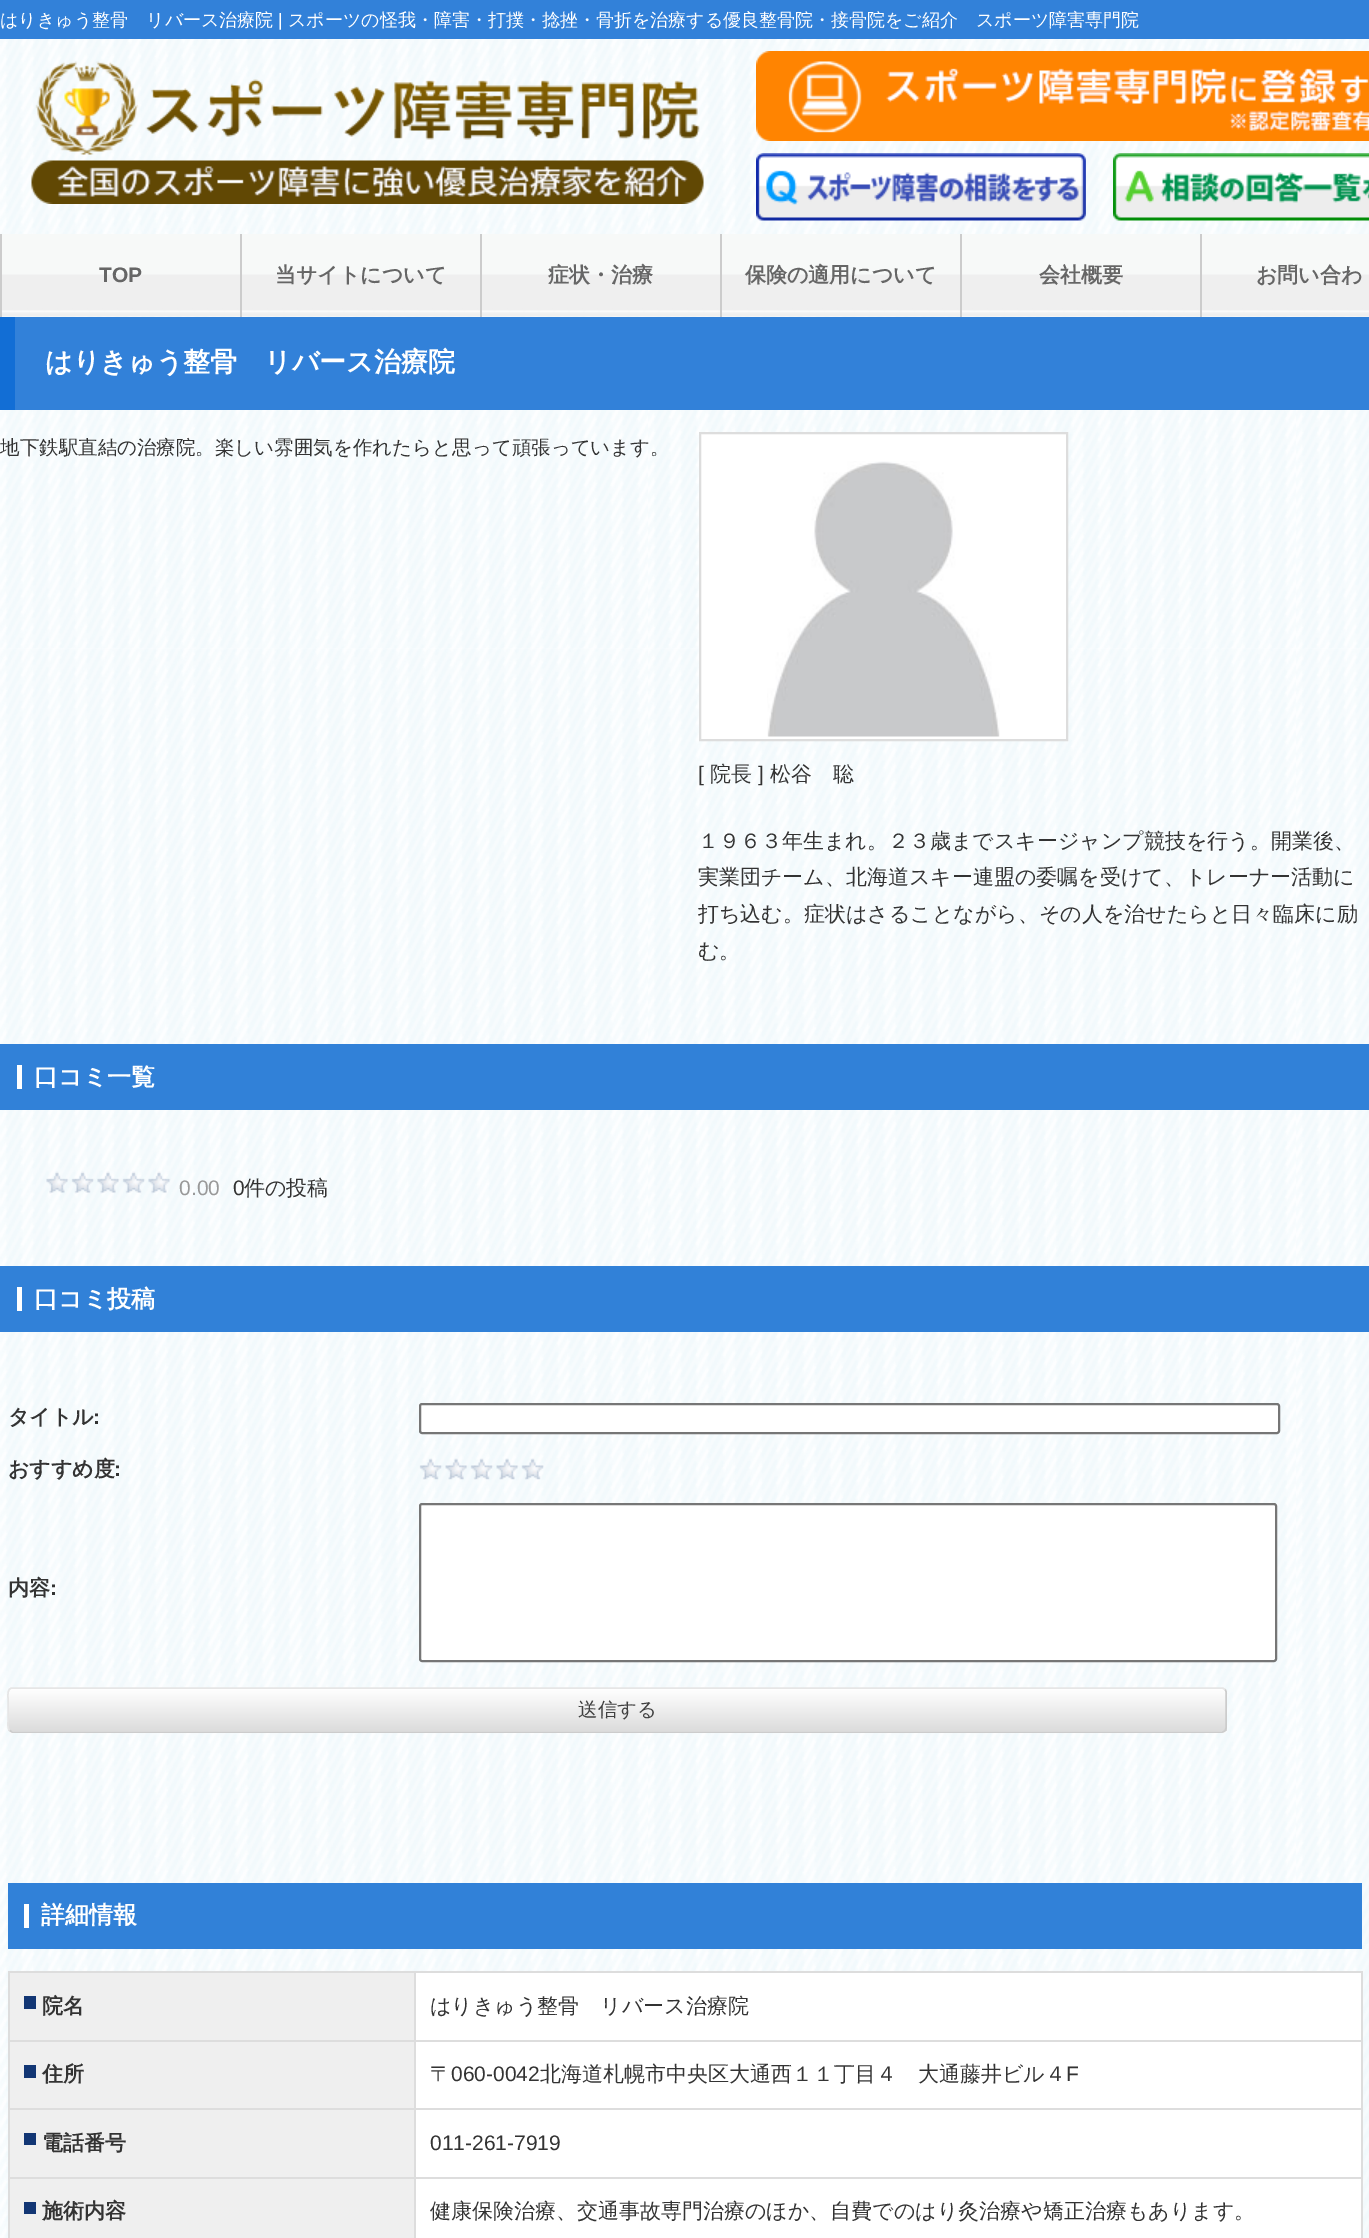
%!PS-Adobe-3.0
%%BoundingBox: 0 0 1369 2238
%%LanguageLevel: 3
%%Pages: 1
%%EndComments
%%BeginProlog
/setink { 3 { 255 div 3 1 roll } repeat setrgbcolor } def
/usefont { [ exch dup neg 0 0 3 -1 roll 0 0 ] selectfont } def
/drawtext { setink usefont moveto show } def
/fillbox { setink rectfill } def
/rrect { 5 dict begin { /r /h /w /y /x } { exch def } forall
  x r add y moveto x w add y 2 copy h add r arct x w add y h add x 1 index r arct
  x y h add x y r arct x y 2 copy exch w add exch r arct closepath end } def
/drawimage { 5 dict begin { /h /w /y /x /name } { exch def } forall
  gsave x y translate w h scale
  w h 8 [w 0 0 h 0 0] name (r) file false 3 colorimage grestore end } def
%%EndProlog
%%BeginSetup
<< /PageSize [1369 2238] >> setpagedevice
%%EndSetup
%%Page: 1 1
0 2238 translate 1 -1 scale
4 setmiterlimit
0 0 1369 2238 255 255 255 fillbox
(assets/img1.rgb) 0 39 1369 2199 drawimage
0 0 1369 39 50 129 217 fillbox
(はりきゅう整骨　リバース治療院) 0 26 /WenQuanYiZenHei-Medium 18 255 255 255 drawtext
(|) 278 26 /LiberationSans-Regular 18 255 255 255 drawtext
(スポーツの怪我・障害・打撲・捻挫・骨折を治療する優良整骨院・接骨院をご紹介　スポーツ障害専門院) 288 26 /WenQuanYiZenHei-Medium 18 255 255 255 drawtext
(assets/img2.rgb) 31 61 673 143 drawimage
(assets/img3.rgb) 756 51 613 90 drawimage
(assets/img4.rgb) 756 153 330 68 drawimage
(assets/img5.rgb) 1113 153 256 68 drawimage
(assets/img6.rgb) 2 234 1367 83 drawimage
0 234 2 83 204 204 204 fillbox
(TOP) 99 282 /LiberationSans-Bold 21 102 102 102 drawtext
240 234 2 83 204 204 204 fillbox
(当サイトについて) 275 282 /WenQuanYiZenHei-Bold 21 102 102 102 drawtext
480 234 2 83 204 204 204 fillbox
(症状・治療) 548 282 /WenQuanYiZenHei-Bold 21 102 102 102 drawtext
720 234 2 83 204 204 204 fillbox
(保険の適用について) 745 282 /WenQuanYiZenHei-Bold 21 102 102 102 drawtext
960 234 2 83 204 204 204 fillbox
(会社概要) 1039 282 /WenQuanYiZenHei-Bold 21 102 102 102 drawtext
1200 234 2 83 204 204 204 fillbox
(お問い合わ) 1256 282 /WenQuanYiZenHei-Bold 21 102 102 102 drawtext
15 317 1354 93 50 129 217 fillbox
0 317 15 93 18 110 213 fillbox
(はりきゅう整骨　リバース治療院) 45 371 /WenQuanYiZenHei-Bold 27 255 255 255 drawtext
(地下鉄駅直結の治療院。楽しい雰囲気を作れたらと思って頑張っています。) 0 454 /WenQuanYiZenHei-Medium 19.5 51 51 51 drawtext
255 255 255 setink
700 433 moveto 1067 433 lineto 1067 740 lineto 700 740 lineto closepath gsave fill grestore
221 221 221 setink
2 setlinewidth
stroke
(assets/img7.rgb) 767 461 233 276 drawimage
([) 698 781 /LiberationSans-Regular 21 51 51 51 drawtext
(院長) 710 781 /WenQuanYiZenHei-Medium 21 51 51 51 drawtext
(]) 758 781 /LiberationSans-Regular 21 51 51 51 drawtext
(松谷　聡) 770 781 /WenQuanYiZenHei-Medium 21 51 51 51 drawtext
(１９６３年生まれ。２３歳までスキージャンプ競技を行う。開業後、) 698 848 /WenQuanYiZenHei-Medium 21 51 51 51 drawtext
(実業団チーム、北海道スキー連盟の委嘱を受けて、トレーナー活動に) 698 884 /WenQuanYiZenHei-Medium 21 51 51 51 drawtext
(打ち込む。症状はさることながら、その人を治せたらと日々臨床に励) 698 921 /WenQuanYiZenHei-Medium 21 51 51 51 drawtext
(む。) 698 958 /WenQuanYiZenHei-Medium 21 51 51 51 drawtext
0 1044 1369 66 49 129 216 fillbox
17 1065 5 24 255 255 255 fillbox
(口コミ一覧) 34 1085 /WenQuanYiZenHei-Bold 24 255 255 255 drawtext
(assets/img8.rgb) 46 1171 125 23 drawimage
(0.00) 179 1195 /LiberationSans-Regular 21 153 153 153 drawtext
(0) 233 1195 /LiberationSans-Regular 21 51 51 51 drawtext
(件の投稿) 244 1195 /WenQuanYiZenHei-Medium 21 51 51 51 drawtext
0 1266 1369 66 49 129 216 fillbox
17 1287 5 24 255 255 255 fillbox
(口コミ投稿) 34 1307 /WenQuanYiZenHei-Bold 24 255 255 255 drawtext
(タイトル) 8 1424 /WenQuanYiZenHei-Bold 21 51 51 51 drawtext
(:) 93 1424 /LiberationSans-Bold 21 51 51 51 drawtext
255 255 255 setink
420 1404 859 29 2 rrect gsave fill grestore
118 118 118 setink
stroke
(おすすめ度) 8 1476 /WenQuanYiZenHei-Bold 21 51 51 51 drawtext
(:) 114 1476 /LiberationSans-Bold 21 51 51 51 drawtext
(assets/img9.rgb) 419 1458 125 22 drawimage
(内容) 8 1595 /WenQuanYiZenHei-Bold 21 51 51 51 drawtext
(:) 50 1595 /LiberationSans-Bold 21 51 51 51 drawtext
255 255 255 setink
420 1504 856 157 2 rrect gsave fill grestore
118 118 118 setink
stroke
gsave
8 1688 1219 45 5 rrect clip newpath
gsave 8 1689 moveto 1227 1689 lineto 1227 1731 lineto 8 1731 lineto closepath clip newpath
<< /ShadingType 2 /ColorSpace /DeviceRGB /Coords [9 1689 9 1760] /Extend [true true] /Function << /FunctionType 2 /Domain [0 1] /C0 [1 1 1] /C1 [0.769 0.769 0.769] /N 1 >> >> shfill grestore
gsave 8 1731 moveto 1227 1731 lineto 1227 1733 lineto 8 1733 lineto closepath clip newpath
<< /ShadingType 2 /ColorSpace /DeviceRGB /Coords [9 1731 9 1802] /Extend [true true] /Function << /FunctionType 2 /Domain [0 1] /C0 [1 1 1] /C1 [0.769 0.769 0.769] /N 1 >> >> shfill grestore
grestore
204 204 204 setink
1.5 setlinewidth
1225 1689.5 moveto 1227 1691.5 1226 1696 1226 1698 curveto 1226 1722 lineto 1226 1725 1227.5 1731.5 1222.5 1732 curveto 12 1732 lineto 9.5 1730.5 lineto stroke
230 230 230 setink
9.5 1730.5 moveto 7.5 1728.5 8 1724 8 1722 curveto 8 1698 lineto 8 1695 7 1688.5 12 1688 curveto 1222.5 1688 lineto 1225 1689.5 lineto stroke
(送信する) 578 1716 /WenQuanYiZenHei-Medium 19.5 64 64 64 drawtext
8 1883 1354 66 49 129 216 fillbox
24 1904 5 24 255 255 255 fillbox
(詳細情報) 41 1923 /WenQuanYiZenHei-Bold 24 255 255 255 drawtext
10 1973 404 67 239 239 239 fillbox
414 1971 948 2 221 221 221 fillbox
414 2040 948 2 221 221 221 fillbox
414 2108 948 2 221 221 221 fillbox
414 2177 948 2 221 221 221 fillbox
414 2177 2 61 221 221 221 fillbox
8 2177 408 2 221 221 221 fillbox
414 2108 2 70 221 221 221 fillbox
8 2108 408 2 221 221 221 fillbox
414 2040 2 69 221 221 221 fillbox
8 2040 408 2 221 221 221 fillbox
414 1971 2 71 221 221 221 fillbox
8 1971 408 2 221 221 221 fillbox
8 2177 2 61 221 221 221 fillbox
8 2108 2 70 221 221 221 fillbox
8 2040 2 69 221 221 221 fillbox
8 1971 2 71 221 221 221 fillbox
24 1996 12 13 18 54 116 fillbox
(院名) 42 2013 /WenQuanYiZenHei-Bold 21 51 51 51 drawtext
416 1973 945 67 255 255 255 fillbox
1361 2177 2 61 221 221 221 fillbox
1361 2108 2 70 221 221 221 fillbox
1361 2040 2 69 221 221 221 fillbox
1361 1971 2 71 221 221 221 fillbox
(はりきゅう整骨　リバース治療院) 430 2013 /WenQuanYiZenHei-Medium 21 51 51 51 drawtext
10 2042 404 66 239 239 239 fillbox
24 2065 12 13 18 54 116 fillbox
(住所) 42 2081 /WenQuanYiZenHei-Bold 21 51 51 51 drawtext
416 2042 945 66 255 255 255 fillbox
(〒) 430 2081 /WenQuanYiZenHei-Medium 21 51 51 51 drawtext
(060-0042) 451 2081 /LiberationSans-Regular 21 51 51 51 drawtext
(北海道札幌市中央区大通西１１丁目４　大通藤井ビル４) 540 2081 /WenQuanYiZenHei-Medium 21 51 51 51 drawtext
(F) 1066 2081 /LiberationSans-Regular 21 51 51 51 drawtext
10 2110 404 67 239 239 239 fillbox
24 2133 12 12 18 54 116 fillbox
(電話番号) 42 2150 /WenQuanYiZenHei-Bold 21 51 51 51 drawtext
416 2110 945 67 255 255 255 fillbox
(011-261-7919) 430 2150 /LiberationSans-Regular 21 51 51 51 drawtext
10 2179 404 59 239 239 239 fillbox
24 2202 12 12 18 54 116 fillbox
(施術内容) 42 2218 /WenQuanYiZenHei-Bold 21 51 51 51 drawtext
416 2179 945 59 255 255 255 fillbox
(健康保険治療、交通事故専門治療のほか、自費でのはり灸治療や矯正治療もあります。) 430 2218 /WenQuanYiZenHei-Medium 21 51 51 51 drawtext
showpage
%%EOF
